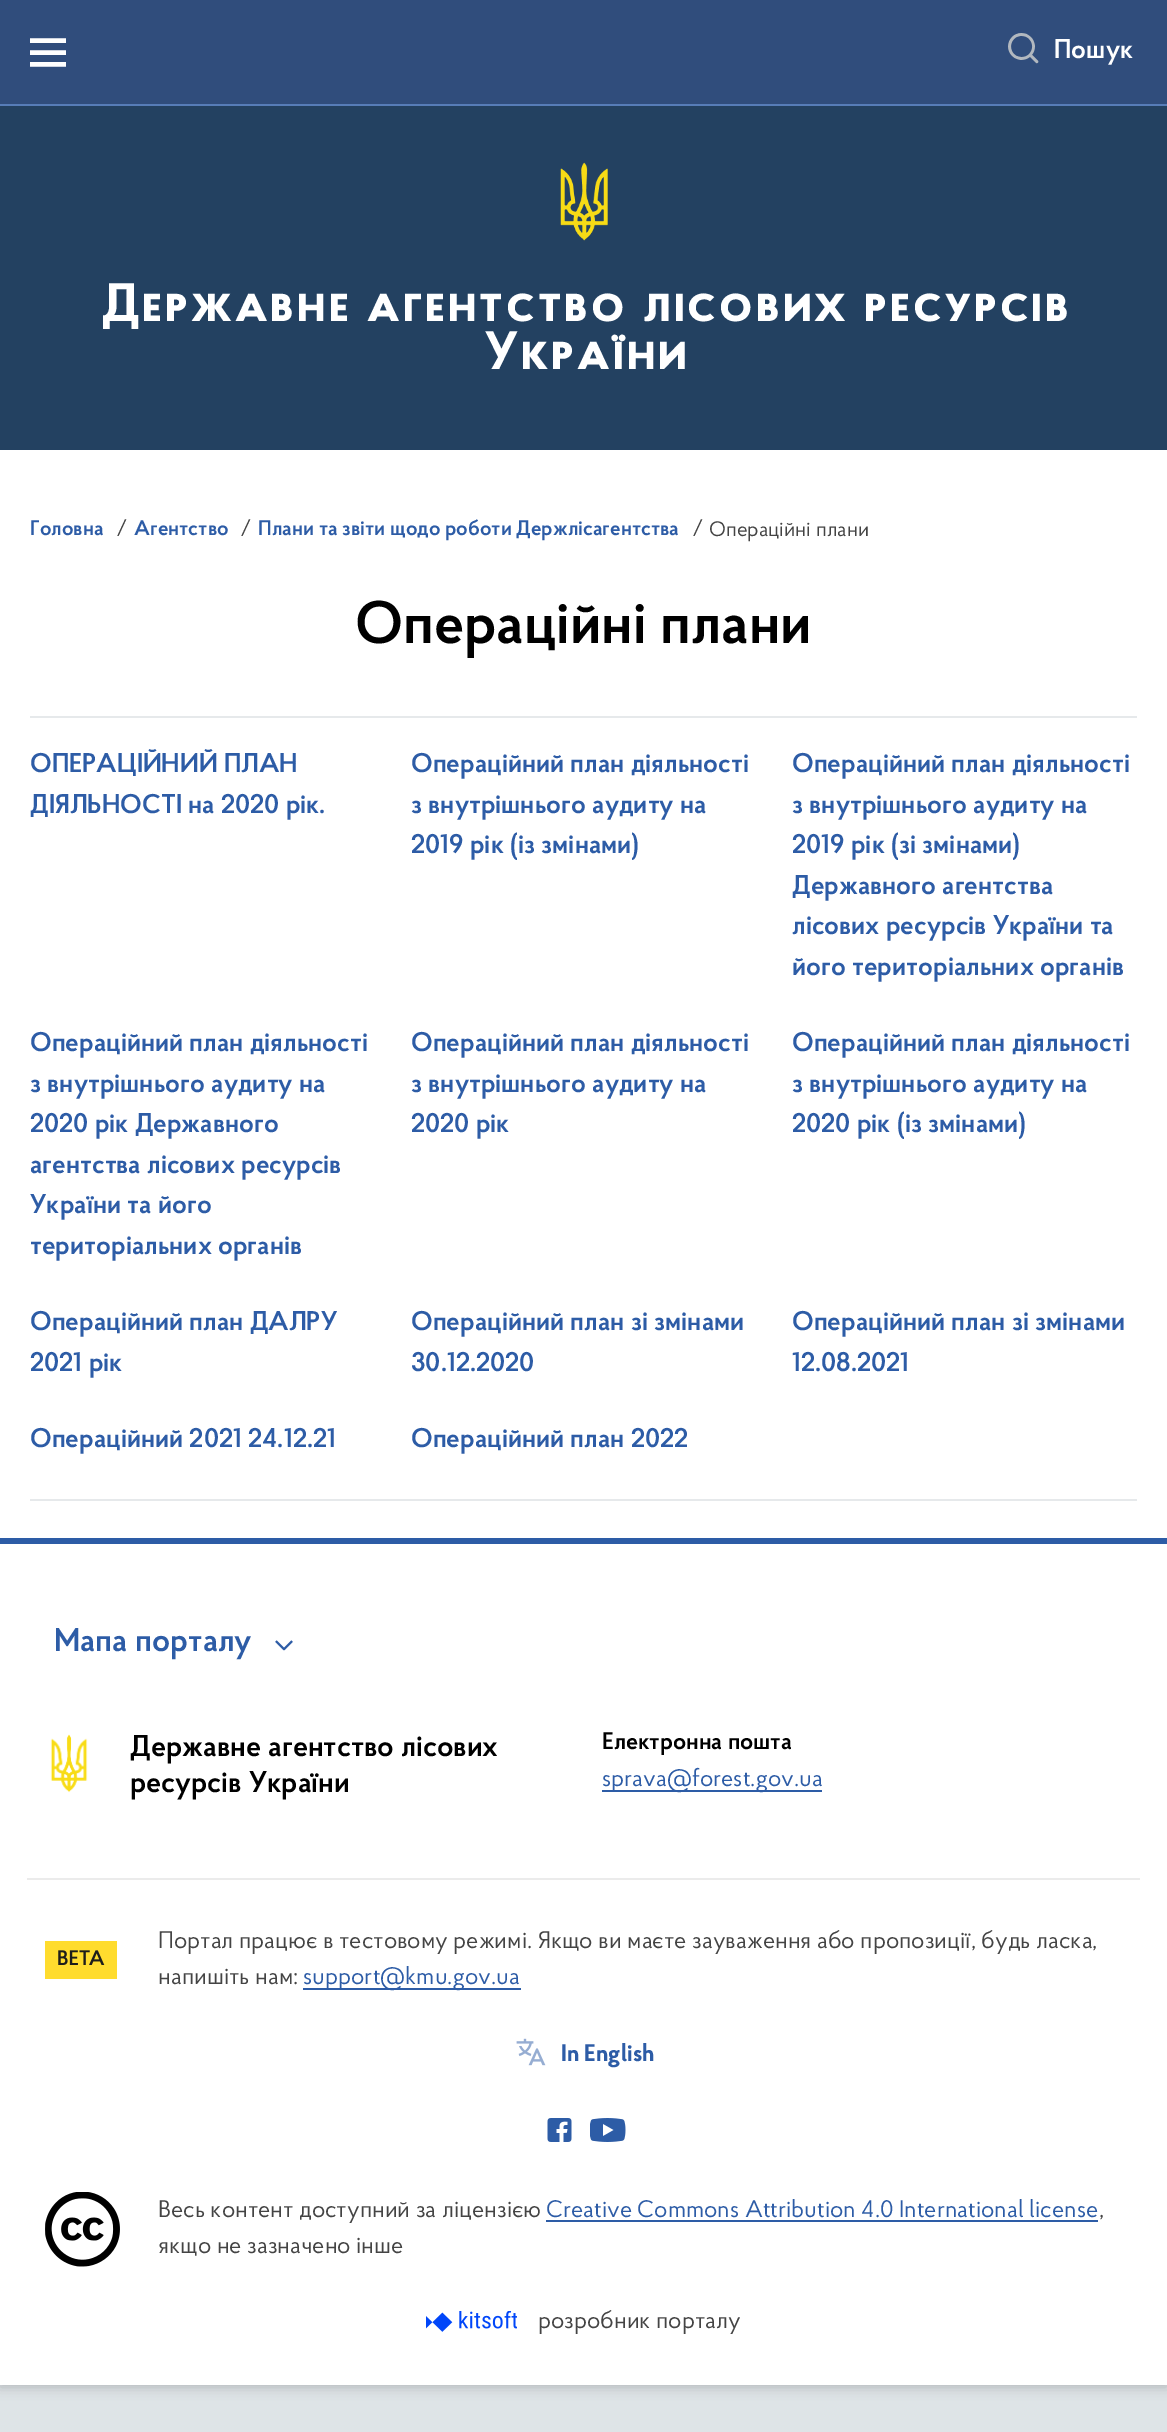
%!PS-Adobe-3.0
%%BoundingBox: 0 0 1167 2432
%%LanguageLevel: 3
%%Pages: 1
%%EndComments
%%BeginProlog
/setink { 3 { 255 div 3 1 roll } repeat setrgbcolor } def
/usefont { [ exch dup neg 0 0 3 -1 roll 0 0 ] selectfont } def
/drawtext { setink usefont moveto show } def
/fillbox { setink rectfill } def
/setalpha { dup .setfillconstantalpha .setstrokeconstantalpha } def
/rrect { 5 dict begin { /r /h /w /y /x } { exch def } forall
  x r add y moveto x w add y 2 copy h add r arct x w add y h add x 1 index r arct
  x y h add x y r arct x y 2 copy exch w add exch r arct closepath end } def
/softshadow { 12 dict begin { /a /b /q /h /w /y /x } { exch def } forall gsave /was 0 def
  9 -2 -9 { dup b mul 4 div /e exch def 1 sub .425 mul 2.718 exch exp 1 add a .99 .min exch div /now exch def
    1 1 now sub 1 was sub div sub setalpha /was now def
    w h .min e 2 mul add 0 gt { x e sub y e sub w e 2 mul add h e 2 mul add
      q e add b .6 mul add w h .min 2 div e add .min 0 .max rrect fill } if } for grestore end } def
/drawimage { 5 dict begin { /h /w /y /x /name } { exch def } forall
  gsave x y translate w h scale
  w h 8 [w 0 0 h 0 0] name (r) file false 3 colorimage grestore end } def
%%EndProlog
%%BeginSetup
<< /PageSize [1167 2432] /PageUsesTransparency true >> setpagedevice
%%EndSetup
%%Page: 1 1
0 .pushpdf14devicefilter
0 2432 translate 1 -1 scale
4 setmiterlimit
0 0 1167 2432 222 228 231 fillbox
0 0 0 setink
0 2 1167 2385 0 6 0.2 softshadow
0 450 1167 1935 255 255 255 fillbox
0 106 1167 344 35 65 97 fillbox
0 0 1167 104 48 77 124 fillbox
0 104 1167 2 87 125 184 fillbox
(assets/img1.rgb) 30 38 36 29 drawimage
(assets/img2.rgb) 1008 33 31 31 drawimage
(Пошук) 1054 58 /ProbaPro-SemiBold 27 255 255 255 drawtext
(assets/img3.rgb) 560 162 48 79 drawimage
/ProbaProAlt-Bold 54 usefont
102 321 moveto 3 0 (Державне агентство лісових ресурсів) ashow
485 369 moveto 3 0 (України) ashow
(Головна) 30 535 /ProbaPro-SemiBold 21 45 92 166 drawtext
(/) 116 535 /ProbaPro-Regular 21 68 68 68 drawtext
(Агентство) 134 535 /ProbaPro-SemiBold 21 45 92 166 drawtext
(/) 240 535 /ProbaPro-Regular 21 68 68 68 drawtext
(Плани та звіти щодо роботи Держлісагентства) 258 535 /ProbaPro-SemiBold 21 45 92 166 drawtext
(/) 692 535 /ProbaPro-Regular 21 68 68 68 drawtext
(Операційні плани) 709 536 /ProbaPro-Regular 21 68 68 68 drawtext
(Операційні плани) 355 643 /ProbaPro-SemiBold 60 0 0 0 drawtext
30 716 1107 2 230 233 235 fillbox
30 1499 1107 2 230 233 235 fillbox
(ОПЕРАЦІЙНИЙ ПЛАН) 30 772 /ProbaPro-SemiBold 27 45 92 166 drawtext
(ДІЯЛЬНОСТІ на 2020 рік.) 30 813 /ProbaPro-SemiBold 27 45 92 166 drawtext
(Операційний план діяльності) 411 772 /ProbaPro-SemiBold 27 45 92 166 drawtext
(з внутрішнього аудиту на) 411 813 /ProbaPro-SemiBold 27 45 92 166 drawtext
(2019 рік \(із змінами\)) 411 853 /ProbaPro-SemiBold 27 45 92 166 drawtext
(Операційний план діяльності) 792 772 /ProbaPro-SemiBold 27 45 92 166 drawtext
(з внутрішнього аудиту на) 792 813 /ProbaPro-SemiBold 27 45 92 166 drawtext
(2019 рік \(зі змінами\)) 792 853 /ProbaPro-SemiBold 27 45 92 166 drawtext
(Державного агентства) 792 894 /ProbaPro-SemiBold 27 45 92 166 drawtext
(лісових ресурсів України та) 792 934 /ProbaPro-SemiBold 27 45 92 166 drawtext
(його територіальних органів) 792 975 /ProbaPro-SemiBold 27 45 92 166 drawtext
(Операційний план діяльності) 30 1051 /ProbaPro-SemiBold 27 45 92 166 drawtext
(з внутрішнього аудиту на) 30 1092 /ProbaPro-SemiBold 27 45 92 166 drawtext
(2020 рік Державного) 30 1132 /ProbaPro-SemiBold 27 45 92 166 drawtext
(агентства лісових ресурсів) 30 1173 /ProbaPro-SemiBold 27 45 92 166 drawtext
(України та його) 30 1213 /ProbaPro-SemiBold 27 45 92 166 drawtext
(територіальних органів) 30 1254 /ProbaPro-SemiBold 27 45 92 166 drawtext
(Операційний план діяльності) 411 1051 /ProbaPro-SemiBold 27 45 92 166 drawtext
(з внутрішнього аудиту на) 411 1092 /ProbaPro-SemiBold 27 45 92 166 drawtext
(2020 рік) 411 1132 /ProbaPro-SemiBold 27 45 92 166 drawtext
(Операційний план діяльності) 792 1051 /ProbaPro-SemiBold 27 45 92 166 drawtext
(з внутрішнього аудиту на) 792 1092 /ProbaPro-SemiBold 27 45 92 166 drawtext
(2020 рік \(із змінами\)) 792 1132 /ProbaPro-SemiBold 27 45 92 166 drawtext
(Операційний план ДАЛРУ) 30 1330 /ProbaPro-SemiBold 27 45 92 166 drawtext
(2021 рік) 30 1371 /ProbaPro-SemiBold 27 45 92 166 drawtext
(Операційний план зі змінами) 411 1330 /ProbaPro-SemiBold 27 45 92 166 drawtext
(30.12.2020) 411 1371 /ProbaPro-SemiBold 27 45 92 166 drawtext
(Операційний план зі змінами) 792 1330 /ProbaPro-SemiBold 27 45 92 166 drawtext
(12.08.2021) 792 1371 /ProbaPro-SemiBold 27 45 92 166 drawtext
(Операційний 2021 24.12.21) 30 1447 /ProbaPro-SemiBold 27 45 92 166 drawtext
(Операційний план 2022) 411 1447 /ProbaPro-SemiBold 27 45 92 166 drawtext
0 1538 1167 6 45 92 166 fillbox
27 1878 1113 2 235 235 235 fillbox
(Мапа порталу) 54 1651 /ProbaPro-SemiBold 33 45 92 166 drawtext
(assets/img4.rgb) 275 1640 18 11 drawimage
(assets/img5.rgb) 50 1734 38 59 drawimage
(Державне агентство лісових) 130 1756 /ProbaPro-SemiBold 30 0 0 0 drawtext
(ресурсів України) 130 1792 /ProbaPro-SemiBold 30 0 0 0 drawtext
(Електронна пошта) 602 1749 /ProbaPro-SemiBold 24 0 0 0 drawtext
602 1790 220 2 45 92 166 fillbox
(sprava@forest.gov.ua) 602 1786 /ProbaPro-Regular 24 45 92 166 drawtext
(assets/img6.rgb) 45 1941 72 38 drawimage
(Портал працює в тестовому режимі. Якщо ви маєте зауваження або пропозиції, будь ласка,) 158 1948 /ProbaPro-Regular 24 68 68 68 drawtext
(напишіть нам:) 158 1984 /ProbaPro-Regular 24 68 68 68 drawtext
303 1988 218 2 45 92 166 fillbox
(support@kmu.gov.ua) 303 1984 /ProbaPro-Regular 24 45 92 166 drawtext
(assets/img7.rgb) 516 2038 30 28 drawimage
(In English) 561 2061 /ProbaPro-Bold 24 45 92 166 drawtext
(assets/img8.rgb) 547 2118 25 24 drawimage
(assets/img9.rgb) 590 2118 36 24 drawimage
(assets/img10.rgb) 45 2192 75 75 drawimage
(Весь контент доступний за ліцензією) 158 2217 /ProbaPro-Regular 24 68 68 68 drawtext
(Creative Commons Attribution 4.0 International license) 546 2217 /ProbaPro-Regular 24 45 92 166 drawtext
546 2220 552 2 45 92 166 fillbox
(,) 1099 2217 /ProbaPro-Regular 24 68 68 68 drawtext
(якщо не зазначено інше) 158 2253 /ProbaPro-Regular 24 68 68 68 drawtext
(assets/img11.rgb) 426 2311 91 21 drawimage
(розробник порталу) 538 2328 /ProbaPro-Regular 24 68 68 68 drawtext
.poppdf14devicefilter showpage
%%EOF
